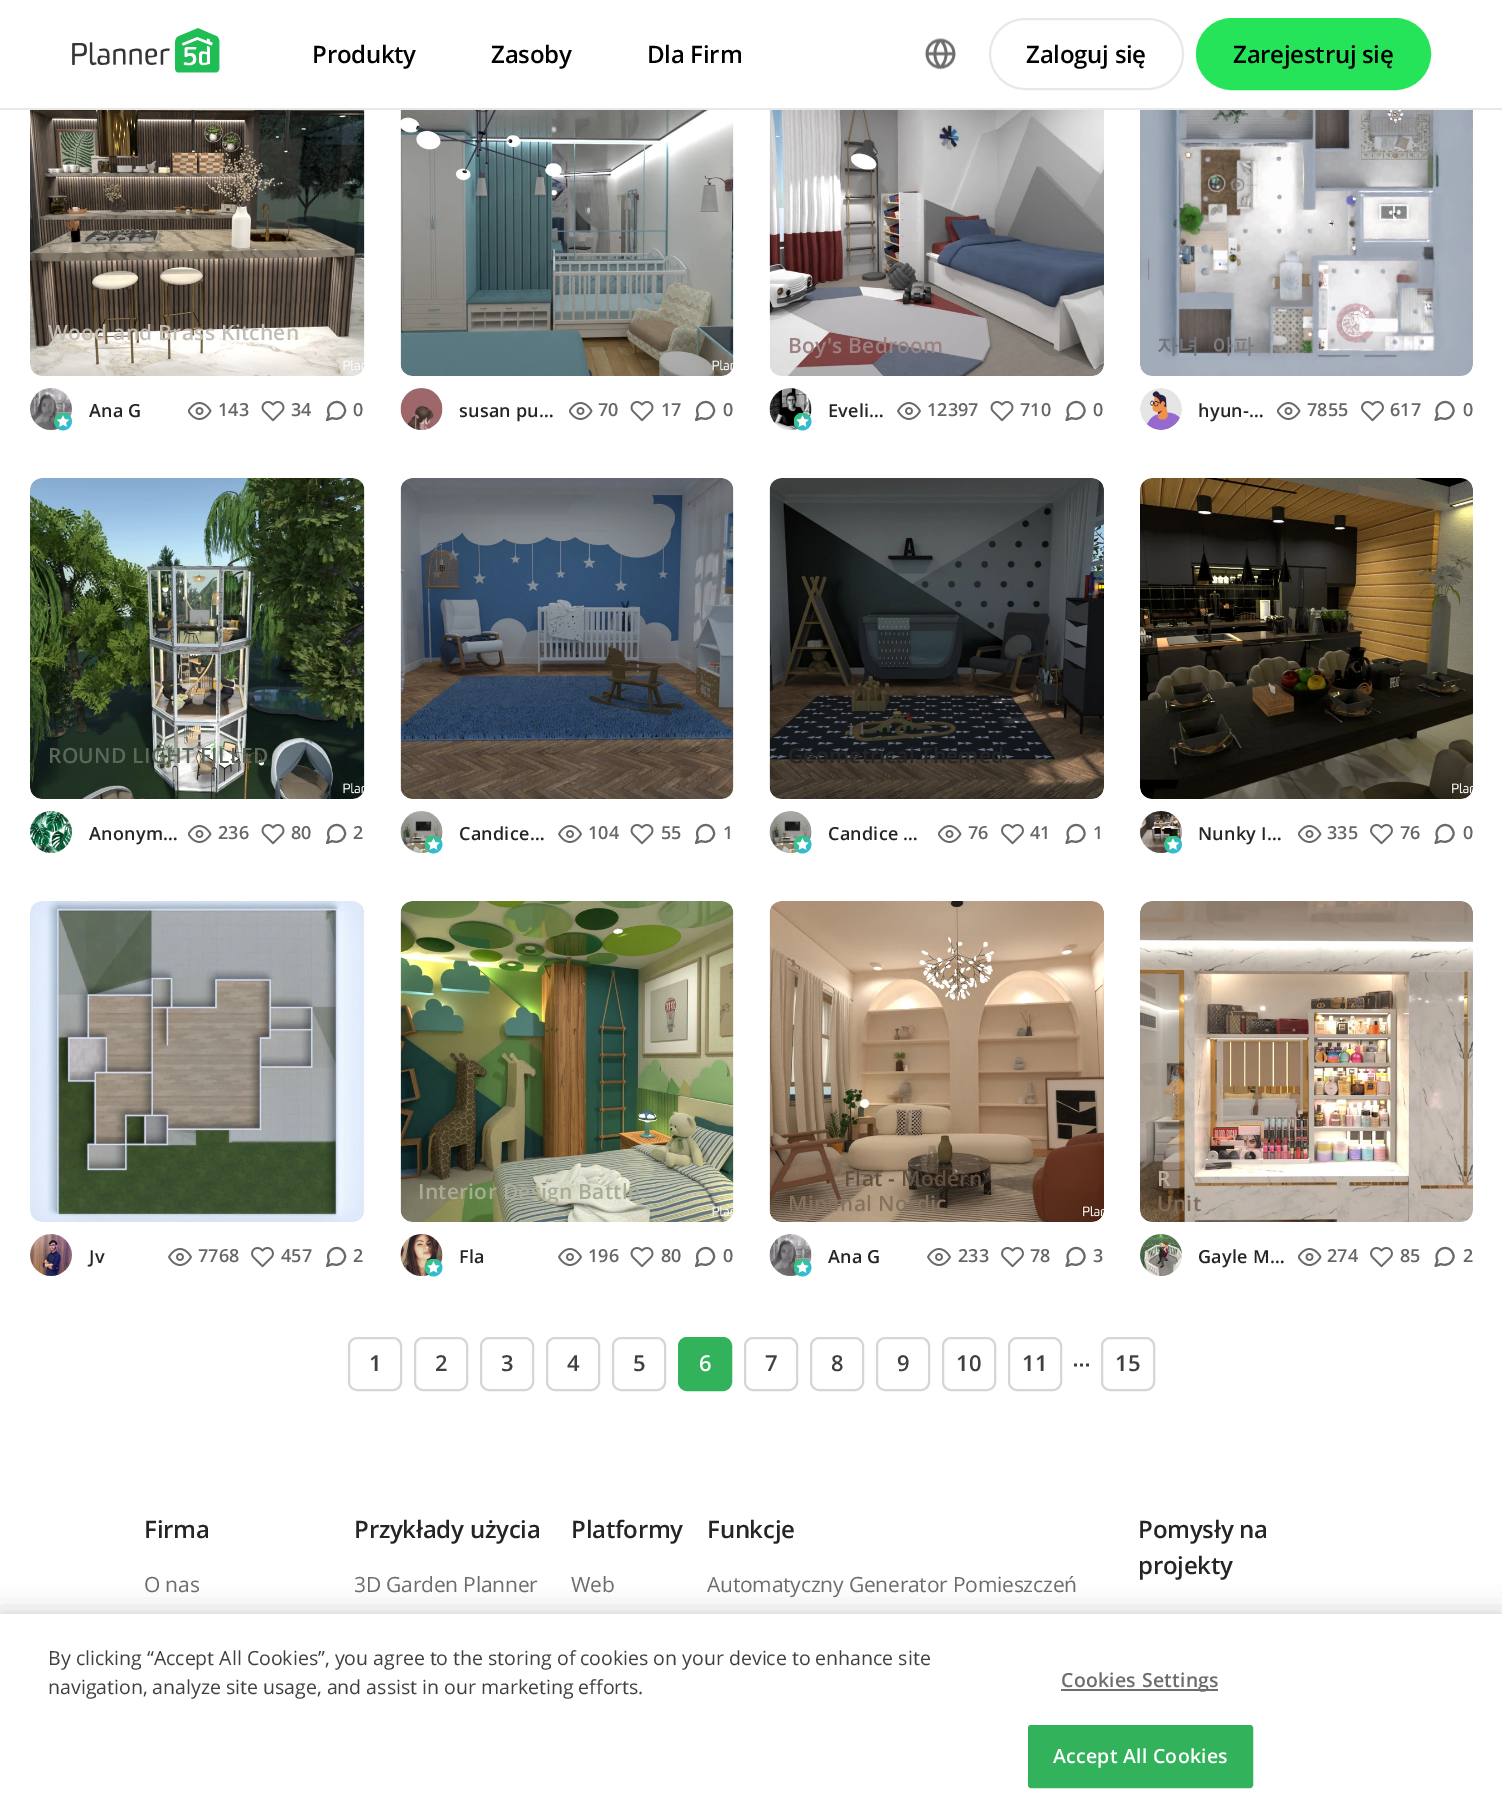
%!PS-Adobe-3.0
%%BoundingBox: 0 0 1502 1817
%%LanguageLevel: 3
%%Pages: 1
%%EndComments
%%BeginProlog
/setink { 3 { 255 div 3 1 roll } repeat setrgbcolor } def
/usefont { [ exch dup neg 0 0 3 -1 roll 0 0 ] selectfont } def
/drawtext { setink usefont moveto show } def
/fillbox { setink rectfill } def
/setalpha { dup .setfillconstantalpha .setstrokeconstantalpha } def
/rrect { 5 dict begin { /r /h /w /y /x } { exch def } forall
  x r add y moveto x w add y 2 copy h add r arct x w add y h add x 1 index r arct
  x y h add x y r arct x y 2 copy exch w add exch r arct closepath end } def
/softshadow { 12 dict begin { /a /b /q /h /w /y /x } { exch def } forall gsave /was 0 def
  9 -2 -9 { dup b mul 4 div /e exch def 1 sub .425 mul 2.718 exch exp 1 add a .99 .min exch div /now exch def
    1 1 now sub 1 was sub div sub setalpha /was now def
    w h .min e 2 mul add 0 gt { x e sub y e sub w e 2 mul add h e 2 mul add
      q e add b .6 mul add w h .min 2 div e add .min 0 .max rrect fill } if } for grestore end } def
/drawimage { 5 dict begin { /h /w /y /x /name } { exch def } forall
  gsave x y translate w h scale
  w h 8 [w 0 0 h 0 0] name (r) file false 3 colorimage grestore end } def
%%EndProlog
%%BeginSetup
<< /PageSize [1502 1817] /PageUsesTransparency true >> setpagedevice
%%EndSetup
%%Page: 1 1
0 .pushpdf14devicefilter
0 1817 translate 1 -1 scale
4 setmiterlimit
0 0 1502 1817 255 255 255 fillbox
0 108 1502 2 232 232 232 fillbox
(assets/img1.rgb) 72 28 148 45 drawimage
/OpenSans-SemiBold 24 usefont
0 0 0 setink
312 63 moveto -0.25 0 (Produkty) ashow
491 63 moveto -0.25 0 (Zasoby) ashow
647 63 moveto -0.25 0 (Dla Firm) ashow
(assets/img2.rgb) 925 38 31 32 drawimage
232 232 232 setink
2 setlinewidth
990 19 193 70 35 rrect stroke
0 0 0 setink
1026 63 moveto -0.25 0 (Zaloguj się) ashow
37 228 89 setink
1197 19 233 70 35 rrect gsave fill grestore
stroke
0 0 0 setink
1233 63 moveto -0.25 0 (Zarejestruj się) ashow
(assets/img3.rgb) 30 110 335 266 drawimage
/OpenSans-SemiBold 21 usefont
193 187 180 setink
48 340 moveto 0.25 0 (Wood and Brass Kitchen) ashow
(assets/img4.rgb) 30 388 42 42 drawimage
/OpenSans-SemiBold 18 usefont
37 37 37 setink
89 417 moveto 0.25 0 (Ana G) ashow
(assets/img5.rgb) 54 413 18 18 drawimage
(assets/img6.rgb) 188 402 24 18 drawimage
(143) 218 416 /OpenSans-SemiBold 18 102 102 102 drawtext
(assets/img7.rgb) 261 401 24 21 drawimage
(34) 291 416 /OpenSans-SemiBold 18 102 102 102 drawtext
104 105 105 setink
1 setlinecap
1 setlinejoin
345 410.5 moveto 345 416.5 338 421 332.5 418 curveto 327 420 lineto 329 414.5 lineto 324.5 406 336 397.5 342.5 404.5 curveto 344 406 345 408 345 410.5 curveto closepath stroke
(0) 353 416 /OpenSans-SemiBold 18 102 102 102 drawtext
(assets/img8.rgb) 400 110 334 266 drawimage
(assets/img9.rgb) 400 388 43 42 drawimage
37 37 37 setink
459 417 moveto 0.25 0 (susan pu…) ashow
(assets/img6.rgb) 569 402 24 18 drawimage
(70) 598 416 /OpenSans-SemiBold 18 102 102 102 drawtext
(assets/img7.rgb) 630 401 24 21 drawimage
(17) 661 416 /OpenSans-SemiBold 18 102 102 102 drawtext
104 105 105 setink
714 410.5 moveto 714 416.5 707 421 701.5 418 curveto 696 420 lineto 698 414.5 lineto 693.5 406 705 397.5 711.5 404.5 curveto 713 406 714 408 714 410.5 curveto closepath stroke
(0) 723 416 /OpenSans-SemiBold 18 102 102 102 drawtext
(assets/img10.rgb) 769 110 335 266 drawimage
/OpenSans-SemiBold 21 usefont
156 129 131 setink
788 353 moveto 0.25 0 (Boy's Bedroom) ashow
(assets/img11.rgb) 769 388 43 42 drawimage
/OpenSans-SemiBold 18 usefont
37 37 37 setink
828 417 moveto 0.25 0 (Eveli…) ashow
(assets/img12.rgb) 794 413 18 18 drawimage
(assets/img13.rgb) 897 402 24 18 drawimage
(12397) 927 416 /OpenSans-SemiBold 18 102 102 102 drawtext
(assets/img7.rgb) 990 401 24 21 drawimage
(710) 1020 416 /OpenSans-SemiBold 18 102 102 102 drawtext
104 105 105 setink
1084.5 410.5 moveto 1084.5 416.5 1077.5 421 1072 418 curveto 1066.5 420 lineto 1068.5 414.5 lineto 1064 406 1075.5 397.5 1082 404.5 curveto 1083.5 406 1084.5 408 1084.5 410.5 curveto closepath stroke
(0) 1093 416 /OpenSans-SemiBold 18 102 102 102 drawtext
(assets/img14.rgb) 1140 110 333 266 drawimage
/WenQuanYiZenHei-Bold 21 usefont
114 117 124 setink
1157 353 moveto 0.25 0 (자녀) ashow
125 125 128 setink
1212 353 moveto 0.25 0 (아파) ashow
(assets/img15.rgb) 1140 388 42 42 drawimage
/OpenSans-SemiBold 18 usefont
37 37 37 setink
1198 417 moveto 0.25 0 (hyun-…) ashow
(assets/img6.rgb) 1277 402 24 18 drawimage
(7855) 1307 416 /OpenSans-SemiBold 18 102 102 102 drawtext
(assets/img16.rgb) 1361 401 23 21 drawimage
(617) 1390 416 /OpenSans-SemiBold 18 102 102 102 drawtext
104 105 105 setink
1453.5 410.5 moveto 1453.5 416.5 1446.5 421 1441 418 curveto 1435.5 420 lineto 1437.5 414.5 lineto 1433 406 1444.5 397.5 1451 404.5 curveto 1452.5 406 1453.5 408 1453.5 410.5 curveto closepath stroke
(0) 1463 416 /OpenSans-SemiBold 18 102 102 102 drawtext
(assets/img17.rgb) 30 478 335 321 drawimage
/OpenSans-SemiBold 21 usefont
92 103 91 setink
48 763 moveto 0.25 0 (ROUND LIGHT FILLED) ashow
(assets/img18.rgb) 30 811 42 42 drawimage
/OpenSans-SemiBold 18 usefont
37 37 37 setink
89 840 moveto 0.25 0 (Anonym…) ashow
(assets/img6.rgb) 188 825 24 18 drawimage
(236) 218 839 /OpenSans-SemiBold 18 102 102 102 drawtext
(assets/img7.rgb) 261 824 24 21 drawimage
(80) 291 839 /OpenSans-SemiBold 18 102 102 102 drawtext
104 105 105 setink
345 833.5 moveto 345 839.5 338 844 332.5 841 curveto 327 843 lineto 329 837.5 lineto 324.5 829 336 820.5 342.5 827.5 curveto 344 829 345 831 345 833.5 curveto closepath stroke
(2) 353 839 /OpenSans-SemiBold 18 102 102 102 drawtext
(assets/img19.rgb) 400 478 334 321 drawimage
(assets/img20.rgb) 400 811 43 42 drawimage
37 37 37 setink
459 840 moveto 0.25 0 (Candice…) ashow
(assets/img21.rgb) 425 836 18 18 drawimage
(assets/img13.rgb) 558 825 24 18 drawimage
(104) 588 839 /OpenSans-SemiBold 18 102 102 102 drawtext
(assets/img7.rgb) 630 824 24 21 drawimage
(55) 661 839 /OpenSans-SemiBold 18 102 102 102 drawtext
104 105 105 setink
714 833.5 moveto 714 839.5 707 844 701.5 841 curveto 696 843 lineto 698 837.5 lineto 693.5 829 705 820.5 711.5 827.5 curveto 713 829 714 831 714 833.5 curveto closepath stroke
(1) 723 839 /OpenSans-SemiBold 18 102 102 102 drawtext
(assets/img22.rgb) 769 478 335 321 drawimage
/OpenSans-SemiBold 21 usefont
37 37 37 setink
788 763 moveto 0.25 0 (Geometrical Themed) ashow
(assets/img23.rgb) 769 811 43 42 drawimage
/OpenSans-SemiBold 18 usefont
828 840 moveto 0.25 0 (Candice …) ashow
(assets/img21.rgb) 794 836 18 18 drawimage
(assets/img6.rgb) 938 825 24 18 drawimage
(76) 968 839 /OpenSans-SemiBold 18 102 102 102 drawtext
(assets/img16.rgb) 1001 824 23 21 drawimage
(41) 1030 839 /OpenSans-SemiBold 18 102 102 102 drawtext
104 105 105 setink
1084.5 833.5 moveto 1084.5 839.5 1077.5 844 1072 841 curveto 1066.5 843 lineto 1068.5 837.5 lineto 1064 829 1075.5 820.5 1082 827.5 curveto 1083.5 829 1084.5 831 1084.5 833.5 curveto closepath stroke
(1) 1093 839 /OpenSans-SemiBold 18 102 102 102 drawtext
(assets/img24.rgb) 1140 478 333 321 drawimage
(assets/img25.rgb) 1140 811 42 42 drawimage
37 37 37 setink
1198 840 moveto 0.25 0 (Nunky I…) ashow
(assets/img26.rgb) 1164 836 18 18 drawimage
(assets/img6.rgb) 1298 825 24 18 drawimage
(335) 1327 839 /OpenSans-SemiBold 18 102 102 102 drawtext
(assets/img16.rgb) 1370 824 23 21 drawimage
(76) 1400 839 /OpenSans-SemiBold 18 102 102 102 drawtext
104 105 105 setink
1453.5 833.5 moveto 1453.5 839.5 1446.5 844 1441 841 curveto 1435.5 843 lineto 1437.5 837.5 lineto 1433 829 1444.5 820.5 1451 827.5 curveto 1452.5 829 1453.5 831 1453.5 833.5 curveto closepath stroke
(0) 1463 839 /OpenSans-SemiBold 18 102 102 102 drawtext
(assets/img27.rgb) 30 901 335 321 drawimage
(assets/img28.rgb) 30 1234 42 42 drawimage
37 37 37 setink
89 1263 moveto 0.25 0 (Jv) ashow
(assets/img13.rgb) 168 1248 24 18 drawimage
(7768) 198 1262 /OpenSans-SemiBold 18 102 102 102 drawtext
(assets/img16.rgb) 251 1247 23 21 drawimage
(457) 281 1262 /OpenSans-SemiBold 18 102 102 102 drawtext
104 105 105 setink
345 1256.5 moveto 345 1262.5 338 1267 332.5 1264 curveto 327 1266 lineto 329 1260.5 lineto 324.5 1252 336 1243.5 342.5 1250.5 curveto 344 1252 345 1254 345 1256.5 curveto closepath stroke
(2) 353 1262 /OpenSans-SemiBold 18 102 102 102 drawtext
(assets/img29.rgb) 400 901 334 321 drawimage
/OpenSans-SemiBold 21 usefont
167 172 148 setink
418 1199 moveto 0.25 0 (Interior Design Battle.) ashow
(assets/img30.rgb) 400 1234 43 42 drawimage
/OpenSans-SemiBold 18 usefont
37 37 37 setink
459 1263 moveto 0.25 0 (Fla) ashow
(assets/img31.rgb) 425 1259 18 18 drawimage
(assets/img13.rgb) 558 1248 24 18 drawimage
(196) 588 1262 /OpenSans-SemiBold 18 102 102 102 drawtext
(assets/img7.rgb) 630 1247 24 21 drawimage
(80) 661 1262 /OpenSans-SemiBold 18 102 102 102 drawtext
104 105 105 setink
714 1256.5 moveto 714 1262.5 707 1267 701.5 1264 curveto 696 1266 lineto 698 1260.5 lineto 693.5 1252 705 1243.5 711.5 1250.5 curveto 713 1252 714 1254 714 1256.5 curveto closepath stroke
(0) 723 1262 /OpenSans-SemiBold 18 102 102 102 drawtext
(assets/img32.rgb) 769 901 335 321 drawimage
/OpenSans-SemiBold 21 usefont
98 80 65 setink
844 1186 moveto 0.25 0 (Flat - Modern) ashow
133 114 94 setink
788 1211 moveto 0.25 0 (Minimal Nordic) ashow
(assets/img33.rgb) 769 1234 43 42 drawimage
/OpenSans-SemiBold 18 usefont
37 37 37 setink
828 1263 moveto 0.25 0 (Ana G) ashow
(assets/img34.rgb) 794 1259 18 18 drawimage
(assets/img13.rgb) 927 1248 24 18 drawimage
(233) 958 1262 /OpenSans-SemiBold 18 102 102 102 drawtext
(assets/img16.rgb) 1001 1247 23 21 drawimage
(78) 1030 1262 /OpenSans-SemiBold 18 102 102 102 drawtext
104 105 105 setink
1084.5 1256.5 moveto 1084.5 1262.5 1077.5 1267 1072 1264 curveto 1066.5 1266 lineto 1068.5 1260.5 lineto 1064 1252 1075.5 1243.5 1082 1250.5 curveto 1083.5 1252 1084.5 1254 1084.5 1256.5 curveto closepath stroke
(3) 1093 1262 /OpenSans-SemiBold 18 102 102 102 drawtext
(assets/img35.rgb) 1140 901 333 321 drawimage
/OpenSans-SemiBold 21 usefont
189 174 157 setink
1157 1186 moveto 0.25 0 (R) ashow
126 108 89 setink
1157 1211 moveto 0.25 0 (Unit) ashow
(assets/img36.rgb) 1140 1234 42 42 drawimage
/OpenSans-SemiBold 18 usefont
37 37 37 setink
1198 1263 moveto 0.25 0 (Gayle M…) ashow
(assets/img6.rgb) 1298 1248 24 18 drawimage
(274) 1327 1262 /OpenSans-SemiBold 18 102 102 102 drawtext
(assets/img16.rgb) 1370 1247 23 21 drawimage
(85) 1400 1262 /OpenSans-SemiBold 18 102 102 102 drawtext
104 105 105 setink
1453.5 1256.5 moveto 1453.5 1262.5 1446.5 1267 1441 1264 curveto 1435.5 1266 lineto 1437.5 1260.5 lineto 1433 1252 1444.5 1243.5 1451 1250.5 curveto 1452.5 1252 1453.5 1254 1453.5 1256.5 curveto closepath stroke
(2) 1463 1262 /OpenSans-SemiBold 18 102 102 102 drawtext
214 214 214 setink
0 setlinecap
0 setlinejoin
349 1338 52 52 8 rrect stroke
(1) 369 1371 /OpenSans-SemiBold 22 64 64 64 drawtext
214 214 214 setink
415 1338 52 52 8 rrect stroke
(2) 435 1371 /OpenSans-SemiBold 22 64 64 64 drawtext
214 214 214 setink
481 1338 52 52 8 rrect stroke
(3) 501 1371 /OpenSans-SemiBold 22 64 64 64 drawtext
214 214 214 setink
547 1338 52 52 8 rrect stroke
(4) 567 1371 /OpenSans-SemiBold 22 64 64 64 drawtext
214 214 214 setink
613 1338 52 52 8 rrect stroke
(5) 633 1371 /OpenSans-SemiBold 22 64 64 64 drawtext
51 178 92 setink
679 1338 52 52 8 rrect gsave fill grestore
stroke
(6) 699 1371 /OpenSans-SemiBold 22 255 255 255 drawtext
214 214 214 setink
745 1338 52 52 8 rrect stroke
(7) 765 1371 /OpenSans-SemiBold 22 64 64 64 drawtext
214 214 214 setink
811 1338 52 52 8 rrect stroke
(8) 831 1371 /OpenSans-SemiBold 22 64 64 64 drawtext
214 214 214 setink
877 1338 52 52 8 rrect stroke
(9) 897 1371 /OpenSans-SemiBold 22 64 64 64 drawtext
214 214 214 setink
943 1338 52 52 8 rrect stroke
(10) 956 1371 /OpenSans-SemiBold 22 64 64 64 drawtext
214 214 214 setink
1009 1338 52 52 8 rrect stroke
(11) 1022 1371 /OpenSans-SemiBold 22 64 64 64 drawtext
(assets/img37.rgb) 1074 1363 15 4 drawimage
214 214 214 setink
1102 1338 52 52 8 rrect stroke
(15) 1115 1371 /OpenSans-SemiBold 22 64 64 64 drawtext
/OpenSans-SemiBold 24 usefont
37 37 37 setink
144 1538 moveto -0.25 0 (Firma) ashow
/OpenSans-Regular 21 usefont
109 109 109 setink
144 1592 moveto -0.2 0 (O nas) ashow
/OpenSans-SemiBold 24 usefont
37 37 37 setink
354 1538 moveto -0.25 0 (Przykłady użycia) ashow
/OpenSans-Regular 21 usefont
109 109 109 setink
354 1592 moveto -0.2 0 (3D Garden Planner) ashow
/OpenSans-SemiBold 24 usefont
37 37 37 setink
571 1538 moveto -0.25 0 (Platformy) ashow
/OpenSans-Regular 21 usefont
109 109 109 setink
571 1592 moveto -0.2 0 (Web) ashow
/OpenSans-SemiBold 24 usefont
37 37 37 setink
707 1538 moveto -0.25 0 (Funkcje) ashow
/OpenSans-Regular 21 usefont
109 109 109 setink
707 1592 moveto -0.2 0 (Automatyczny Generator Pomieszczeń) ashow
/OpenSans-SemiBold 24 usefont
37 37 37 setink
1138 1538 moveto -0.25 0 (Pomysły na) ashow
1138 1574 moveto -0.25 0 (projekty) ashow
0 0 0 setink
0 1614 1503 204 0 13.5 0.2 softshadow
0 1614 1502 203 255 255 255 fillbox
(By clicking “Accept All Cookies”, you agree to the storing of cookies on your device to enhance site) 48 1665 /OpenSans-Regular 19.5 64 64 64 drawtext
(navigation, analyze site usage, and assist in our marketing efforts.) 48 1694 /OpenSans-Regular 19.5 64 64 64 drawtext
1061 1689 157 2 109 109 109 fillbox
/OpenSans-SemiBold 19.5 usefont
1061 1687 moveto 0.25 0 (Cookies Settings) ashow
51 178 92 setink
1029 1726 223 61 2 rrect gsave fill grestore
stroke
255 255 255 setink
1053 1763 moveto 0.25 0 (Accept All Cookies) ashow
.poppdf14devicefilter showpage
%%EOF
